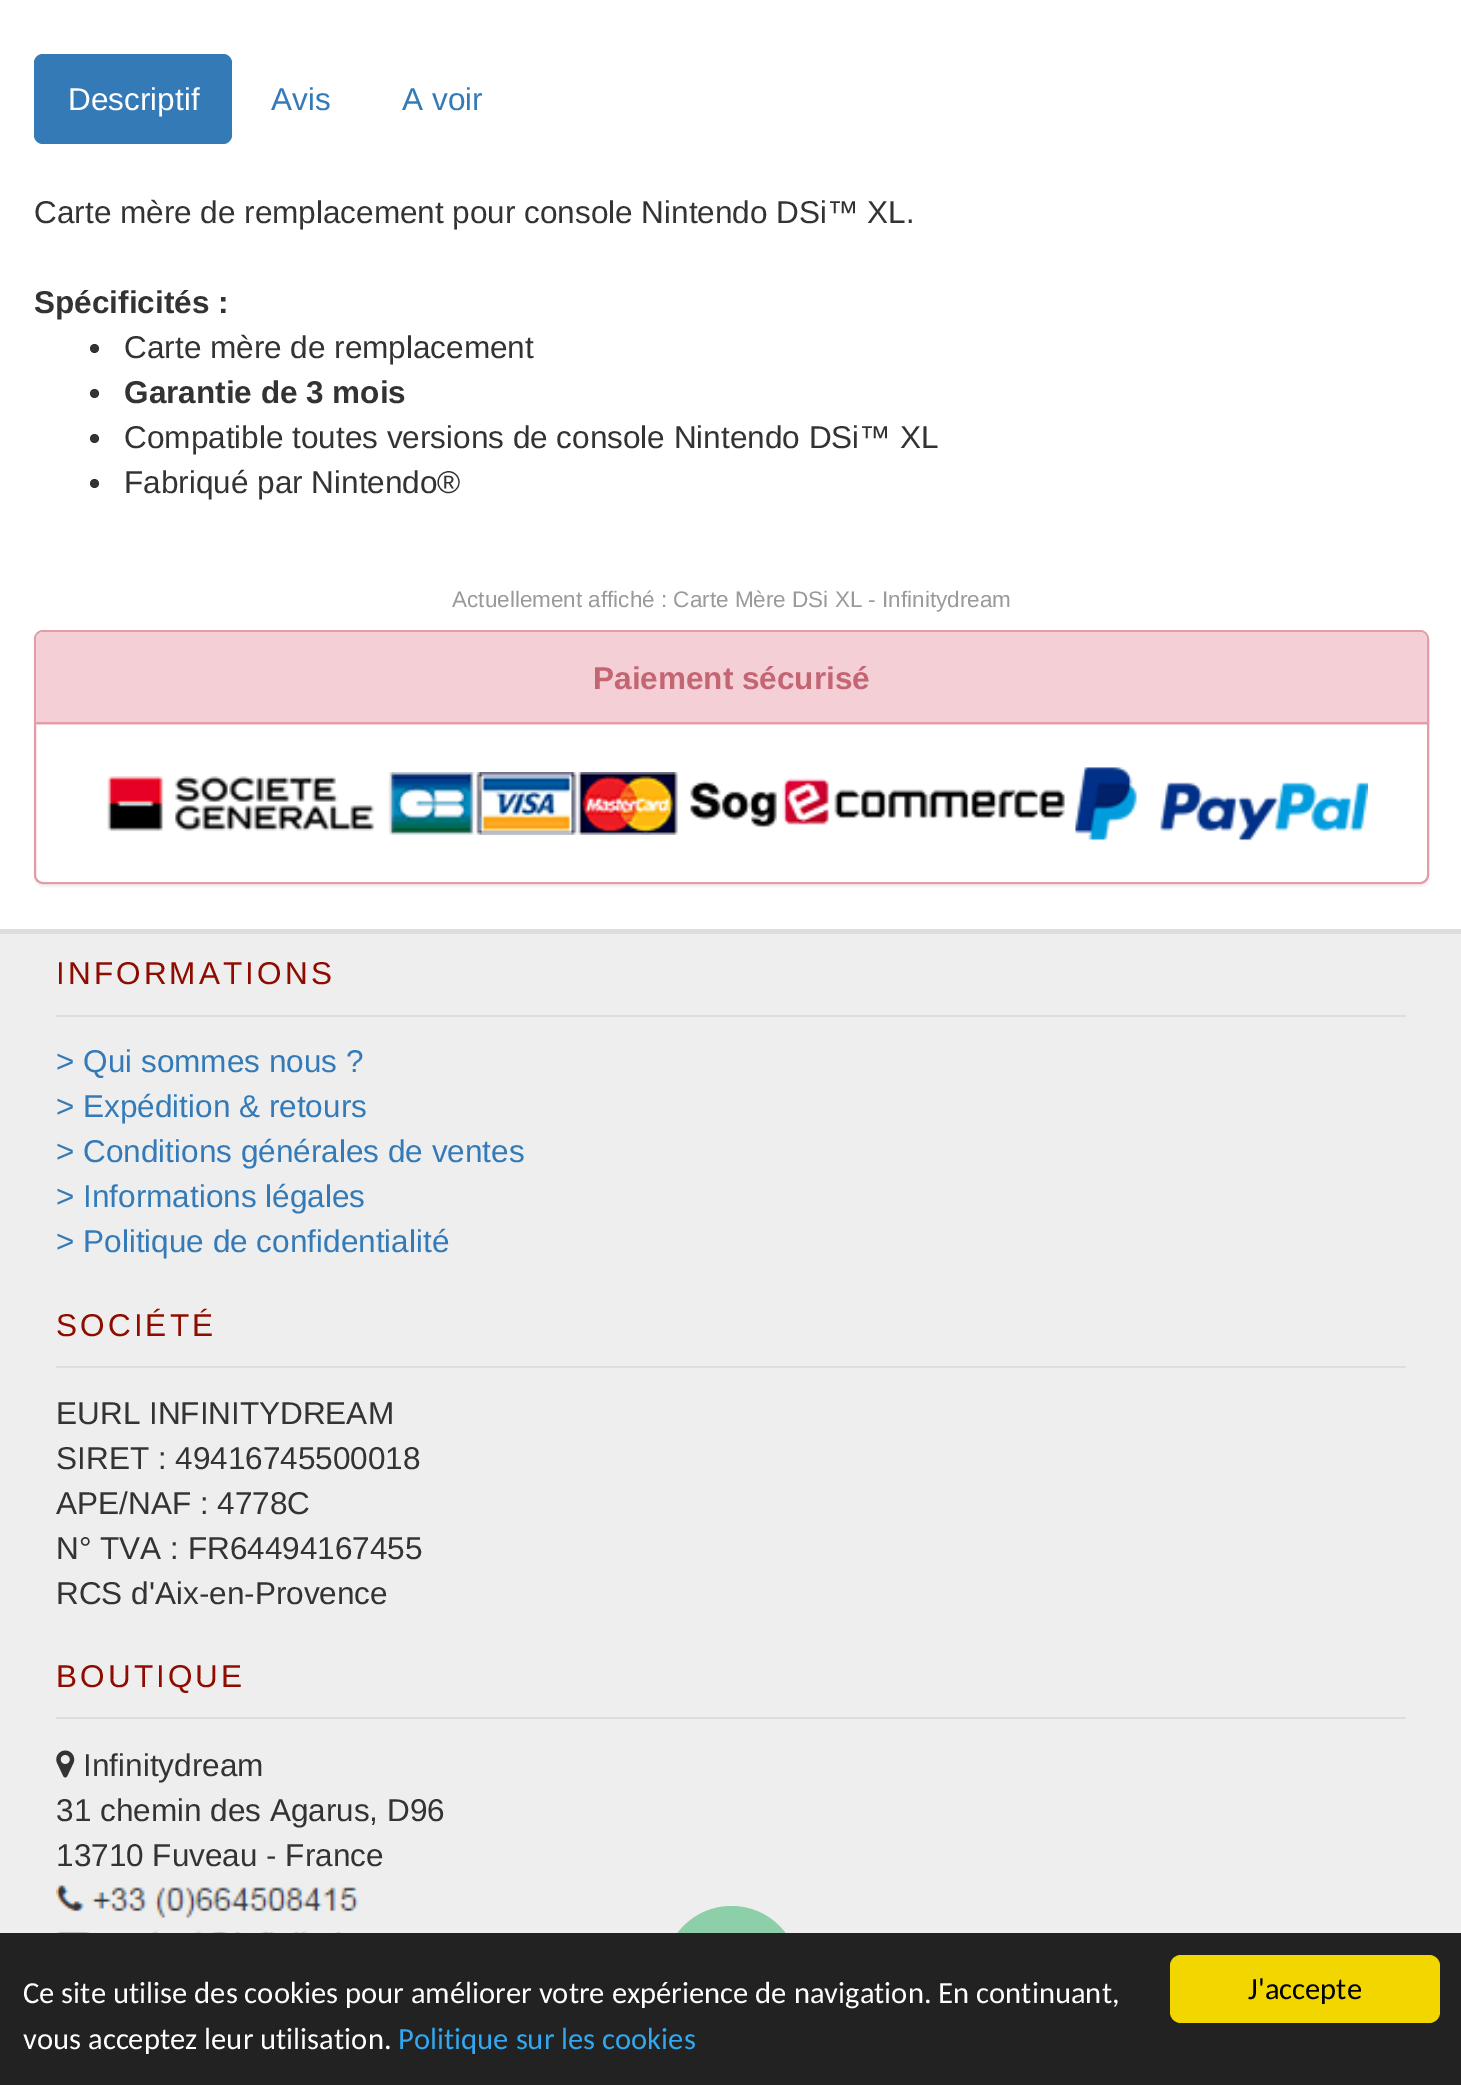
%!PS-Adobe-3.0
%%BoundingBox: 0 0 1461 2085
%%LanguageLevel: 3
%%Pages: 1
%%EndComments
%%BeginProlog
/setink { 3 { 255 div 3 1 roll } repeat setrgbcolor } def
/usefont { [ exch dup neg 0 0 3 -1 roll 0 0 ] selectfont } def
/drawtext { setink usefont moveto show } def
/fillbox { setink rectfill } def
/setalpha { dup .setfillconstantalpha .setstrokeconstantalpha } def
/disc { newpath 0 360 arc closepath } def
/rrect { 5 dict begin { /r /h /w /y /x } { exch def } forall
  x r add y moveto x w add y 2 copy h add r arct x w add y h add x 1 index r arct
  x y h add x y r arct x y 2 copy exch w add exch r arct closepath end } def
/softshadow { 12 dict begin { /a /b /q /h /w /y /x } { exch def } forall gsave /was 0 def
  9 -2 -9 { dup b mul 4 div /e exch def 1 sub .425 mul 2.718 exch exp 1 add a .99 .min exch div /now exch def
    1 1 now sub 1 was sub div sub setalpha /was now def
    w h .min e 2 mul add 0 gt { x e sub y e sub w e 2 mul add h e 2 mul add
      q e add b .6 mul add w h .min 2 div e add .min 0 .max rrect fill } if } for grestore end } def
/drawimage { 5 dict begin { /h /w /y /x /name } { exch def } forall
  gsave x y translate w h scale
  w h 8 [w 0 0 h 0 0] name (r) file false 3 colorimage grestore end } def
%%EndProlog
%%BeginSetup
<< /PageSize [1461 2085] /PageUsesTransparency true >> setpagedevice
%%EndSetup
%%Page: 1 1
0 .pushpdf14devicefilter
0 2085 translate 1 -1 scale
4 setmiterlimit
0 0 1461 2085 255 255 255 fillbox
51 122 183 setink
34 54 198 90 9 rrect fill
(Descriptif) 68 110 /LiberationSans-Regular 31.5 255 255 255 drawtext
(Avis) 271 110 /LiberationSans-Regular 31.5 51 122 183 drawtext
(A voir) 402 110 /LiberationSans-Regular 31.5 51 122 183 drawtext
(Carte mère de remplacement pour console Nintendo DSi™ XL.) 34 223 /LiberationSans-Regular 31.5 51 51 51 drawtext
(Spécificités :) 34 313 /LiberationSans-Bold 31.5 51 51 51 drawtext
94.5 348.5 4.5 disc fill
(Carte mère de remplacement) 124 358 /LiberationSans-Regular 31.5 51 51 51 drawtext
94.5 393.5 4.5 disc fill
(Garantie de 3 mois) 124 403 /LiberationSans-Bold 31.5 51 51 51 drawtext
94.5 438.5 4.5 disc fill
(Compatible toutes versions de console Nintendo DSi™ XL) 124 448 /LiberationSans-Regular 31.5 51 51 51 drawtext
94.5 483.5 4.5 disc fill
(Fabriqué par Nintendo®) 124 493 /LiberationSans-Regular 31.5 51 51 51 drawtext
(Actuellement affiché : Carte Mère DSi XL - Infinitydream) 452 607 /LiberationSans-Regular 22.5 154 154 154 drawtext
0 0 0 setink
34 632 1395 255 9 1 0.05 softshadow
255 255 255 setink
35 631 1393 252 8 rrect gsave fill grestore
225 158 169 setink
2 setlinewidth
stroke
244 207 213 setink
43 632 moveto 1420 632 lineto 1424 632 1427 635 1427 639 curveto 1427 725 lineto 36 725 lineto 36 639 lineto 36 635 39 632 43 632 curveto closepath fill
36 722 1391 2 225 158 169 fillbox
(Paiement sécurisé) 593 689 /LiberationSans-Bold 31.5 196 101 116 drawtext
(assets/img1.rgb) 107 776 268 56 drawimage
(assets/img2.rgb) 388 772 290 63 drawimage
(assets/img3.rgb) 690 778 375 51 drawimage
(assets/img4.rgb) 1075 767 293 74 drawimage
0 934 1461 999 238 238 238 fillbox
0 929 1461 5 221 221 221 fillbox
56 1015 1350 2 221 221 221 fillbox
/LiberationSans-Regular 31.5 usefont
142 11 0 setink
56 984 moveto 3.1 0 (INFORMATIONS) ashow
(> Qui sommes nous ?) 56 1072 /LiberationSans-Regular 31.5 51 122 183 drawtext
(> Expédition & retours) 56 1117 /LiberationSans-Regular 31.5 51 122 183 drawtext
(> Conditions générales de ventes) 56 1162 /LiberationSans-Regular 31.5 51 122 183 drawtext
(> Informations légales) 56 1207 /LiberationSans-Regular 31.5 51 122 183 drawtext
(> Politique de confidentialité) 56 1252 /LiberationSans-Regular 31.5 51 122 183 drawtext
56 1366 1350 2 221 221 221 fillbox
142 11 0 setink
56 1336 moveto 3.1 0 (SOCIÉTÉ) ashow
(EURL INFINITYDREAM) 56 1424 /LiberationSans-Regular 31.5 51 51 51 drawtext
(SIRET : 49416745500018) 56 1469 /LiberationSans-Regular 31.5 51 51 51 drawtext
(APE/NAF : 4778C) 56 1514 /LiberationSans-Regular 31.5 51 51 51 drawtext
(N° TVA : FR64494167455) 56 1559 /LiberationSans-Regular 31.5 51 51 51 drawtext
(RCS d'Aix-en-Provence) 56 1604 /LiberationSans-Regular 31.5 51 51 51 drawtext
56 1717 1350 2 221 221 221 fillbox
142 11 0 setink
56 1687 moveto 3.1 0 (BOUTIQUE) ashow
(assets/img5.rgb) 56 1750 19 28 drawimage
(Infinitydream) 83 1776 /LiberationSans-Regular 31.5 51 51 51 drawtext
(31 chemin des Agarus, D96) 56 1821 /LiberationSans-Regular 31.5 51 51 51 drawtext
(13710 Fuveau - France) 56 1866 /LiberationSans-Regular 31.5 51 51 51 drawtext
(assets/img6.rgb) 56 1885 430 48 drawimage
0.49 setalpha
39 174 97 setink
731.5 1973.5 67.5 disc fill
1 setalpha
0 1933 1461 152 34 34 34 fillbox
(Ce site utilise des cookies pour améliorer votre expérience de navigation. En continuant,) 23 2003 /Carlito-Regular 30.6 255 255 255 drawtext
(vous acceptez leur utilisation.) 23 2049 /Carlito-Regular 30.6 255 255 255 drawtext
(Politique sur les cookies) 398 2049 /Carlito-Regular 30.6 49 168 240 drawtext
241 214 0 setink
1170 1955 270 68 11 rrect fill
(J'accepte) 1248 1999 /Carlito-Regular 30.6 0 0 0 drawtext
.poppdf14devicefilter showpage
%%EOF
